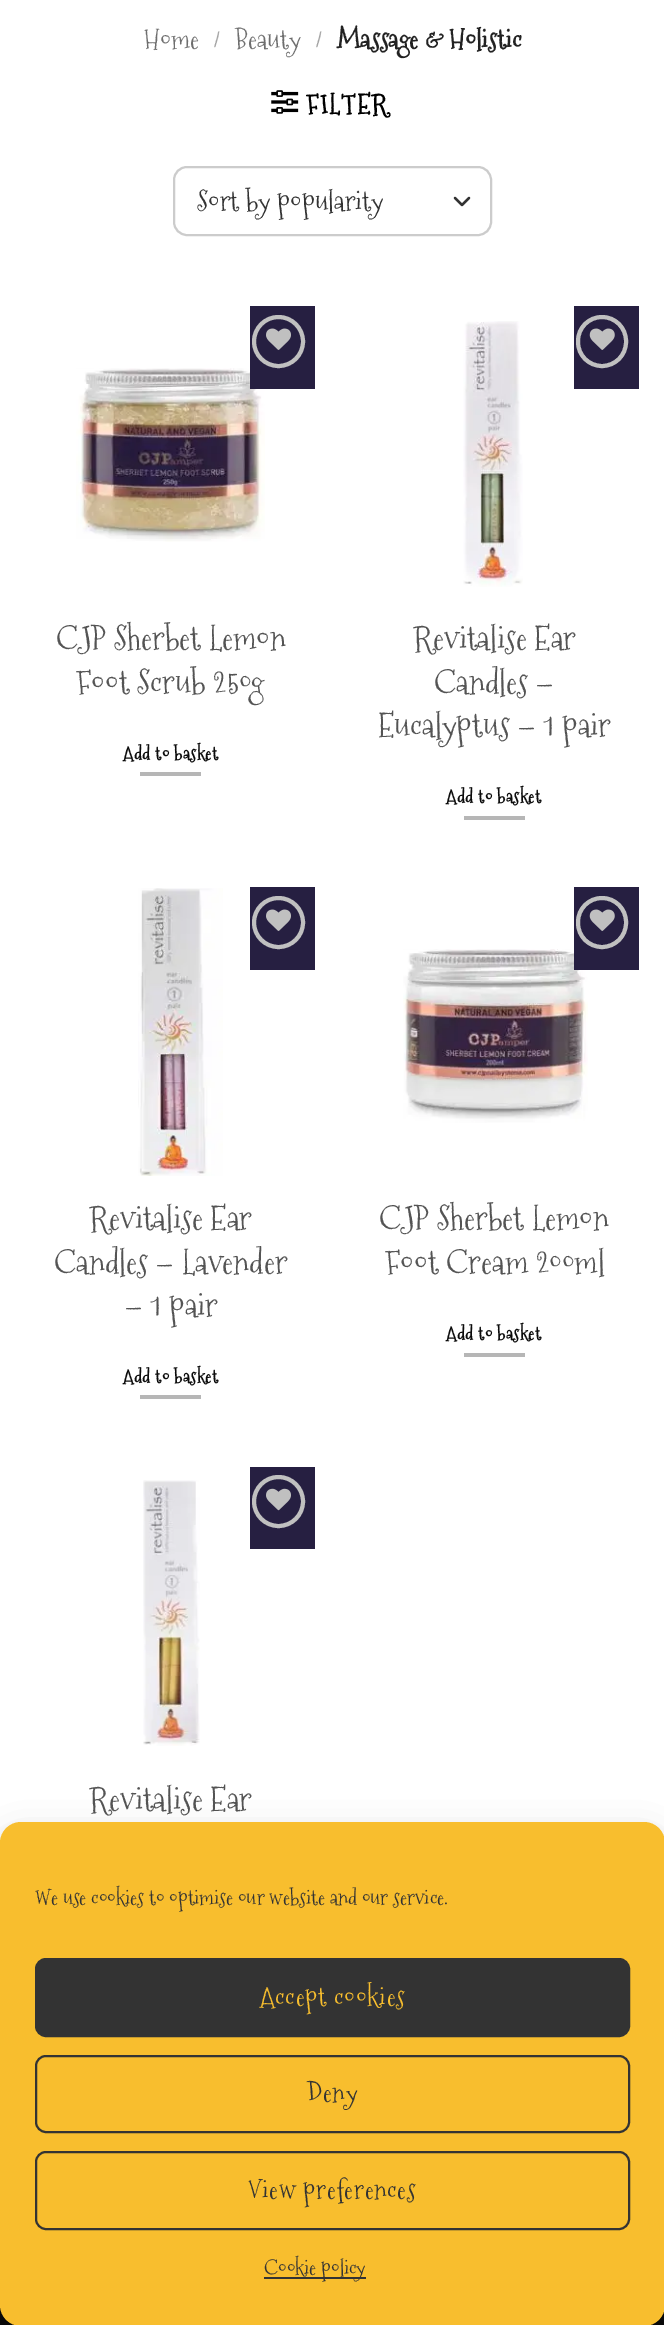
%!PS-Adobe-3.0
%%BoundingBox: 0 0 664 2325
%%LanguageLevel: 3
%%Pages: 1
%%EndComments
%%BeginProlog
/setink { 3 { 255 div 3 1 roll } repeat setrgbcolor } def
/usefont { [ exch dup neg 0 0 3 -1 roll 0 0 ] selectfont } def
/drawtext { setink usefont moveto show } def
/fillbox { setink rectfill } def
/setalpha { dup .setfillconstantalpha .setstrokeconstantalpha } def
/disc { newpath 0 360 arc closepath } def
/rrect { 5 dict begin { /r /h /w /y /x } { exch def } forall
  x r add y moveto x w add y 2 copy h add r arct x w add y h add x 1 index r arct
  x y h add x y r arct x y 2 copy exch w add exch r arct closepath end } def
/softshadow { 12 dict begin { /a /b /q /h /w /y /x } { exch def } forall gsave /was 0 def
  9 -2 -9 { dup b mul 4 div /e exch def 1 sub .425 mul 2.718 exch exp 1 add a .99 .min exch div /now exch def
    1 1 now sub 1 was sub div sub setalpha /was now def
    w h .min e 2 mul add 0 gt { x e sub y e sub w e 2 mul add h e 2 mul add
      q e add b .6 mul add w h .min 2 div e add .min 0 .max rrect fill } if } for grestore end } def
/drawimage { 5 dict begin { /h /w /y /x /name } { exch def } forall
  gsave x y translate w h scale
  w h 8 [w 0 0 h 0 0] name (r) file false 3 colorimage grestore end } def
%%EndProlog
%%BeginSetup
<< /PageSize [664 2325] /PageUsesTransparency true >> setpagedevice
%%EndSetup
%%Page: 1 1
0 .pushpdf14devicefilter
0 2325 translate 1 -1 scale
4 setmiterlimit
0 0 664 2325 255 255 255 fillbox
(Home) 144 49 /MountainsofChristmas-Regular 27 110 110 110 drawtext
(/) 213 49 /MountainsofChristmas-Regular 27 166 166 166 drawtext
(Beauty) 235 49 /MountainsofChristmas-Regular 27 110 110 110 drawtext
(/) 315 49 /MountainsofChristmas-Regular 27 166 166 166 drawtext
(Massage & Holistic) 337 49 /MountainsofChristmas-Bold 27 34 34 34 drawtext
(assets/img1.rgb) 271 90 28 24 drawimage
0 0 0 setink
306 114 moveto 1.5 0 (FILTER) ashow
51 51 51 setink
2.3 setlinewidth
1 setlinecap
1 setlinejoin
455 198 moveto 462 205 lineto 469 198 lineto stroke
204 204 204 setink
2 setlinewidth
0 setlinecap
0 setlinejoin
174 167 317 68 13 rrect stroke
(Sort by popularity) 197 211 /MountainsofChristmas-Regular 28 51 51 51 drawtext
(assets/img3.rgb) 76 368 189 174 drawimage
250 306 65 83 38 31 65 fillbox
192 192 192 setink
4 setlinewidth
278.5 341.5 24.5 disc stroke
(assets/img2.rgb) 266 328 25 22 drawimage
(CJP Sherbet Lemon) 56 650 /MountainsofChristmas-Regular 33.25 84 84 84 drawtext
(Foot Scrub 250g) 76 694 /MountainsofChristmas-Regular 33.25 84 84 84 drawtext
/MountainsofChristmas-Bold 18.25 usefont
12 12 12 setink
123 760 moveto 0.5 0 (Add to basket) ashow
140 772 61 4 182 182 182 fillbox
(assets/img4.rgb) 463 321 60 266 drawimage
574 306 65 83 38 31 65 fillbox
192 192 192 setink
578 317 48 49 24 rrect stroke
(assets/img5.rgb) 589 328 26 22 drawimage
(Revitalise Ear) 413 650 /MountainsofChristmas-Regular 33.25 84 84 84 drawtext
(Candles –) 434 694 /MountainsofChristmas-Regular 33.25 84 84 84 drawtext
(Eucalyptus – 1 pair) 378 737 /MountainsofChristmas-Regular 33.25 84 84 84 drawtext
/MountainsofChristmas-Bold 18.25 usefont
12 12 12 setink
446 803 moveto 0.5 0 (Add to basket) ashow
464 816 61 4 182 182 182 fillbox
(assets/img6.rgb) 138 888 85 288 drawimage
250 887 65 83 38 31 65 fillbox
192 192 192 setink
278.5 922.5 24.5 disc stroke
(assets/img2.rgb) 266 909 25 22 drawimage
(Revitalise Ear) 89 1230 /MountainsofChristmas-Regular 33.25 84 84 84 drawtext
(Candles – Lavender) 54 1274 /MountainsofChristmas-Regular 33.25 84 84 84 drawtext
(– 1 pair) 124 1317 /MountainsofChristmas-Regular 33.25 84 84 84 drawtext
/MountainsofChristmas-Bold 18.25 usefont
12 12 12 setink
123 1383 moveto 0.5 0 (Add to basket) ashow
140 1395 61 4 182 182 182 fillbox
(assets/img7.rgb) 403 949 185 174 drawimage
574 887 65 83 38 31 65 fillbox
192 192 192 setink
578 898 48 49 24 rrect stroke
(assets/img5.rgb) 589 909 26 22 drawimage
(CJP Sherbet Lemon) 379 1230 /MountainsofChristmas-Regular 33.25 84 84 84 drawtext
(Foot Cream 200ml) 385 1274 /MountainsofChristmas-Regular 33.25 84 84 84 drawtext
/MountainsofChristmas-Bold 18.25 usefont
12 12 12 setink
446 1340 moveto 0.5 0 (Add to basket) ashow
464 1353 61 4 182 182 182 fillbox
(assets/img8.rgb) 143 1480 57 266 drawimage
250 1467 65 82 38 31 65 fillbox
192 192 192 setink
278.5 1501.5 24.5 disc stroke
(assets/img9.rgb) 266 1488 25 23 drawimage
(Revitalise Ear) 89 1811 /MountainsofChristmas-Regular 33.25 84 84 84 drawtext
0 2305 664 20 10 10 10 fillbox
0 0 0 setink
0 1832 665 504 21 5 0.23 softshadow
0 1839 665 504 21 17.5 0.19 softshadow
248 190 46 setink
0 1822 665 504 21 rrect fill
(We use cookies to optimise our website and our service.) 35 1905 /MountainsofChristmas-Regular 21 51 51 51 drawtext
36 1959 593 77 10 rrect gsave fill grestore
2 setlinewidth
stroke
/MountainsofChristmas-Regular 26.25 usefont
248 190 46 setink
260 2006 moveto 0.75 0 (Accept cookies) ashow
51 51 51 setink
36 2056 593 76 10 rrect stroke
307 2102 moveto 0.75 0 (Deny) ashow
36 2152 593 77 10 rrect stroke
248 2199 moveto 0.75 0 (View preferences) ashow
264 2277 102 2 51 51 51 fillbox
(Cookie policy) 264 2275 /MountainsofChristmas-Regular 21 51 51 51 drawtext
.poppdf14devicefilter showpage
%%EOF
